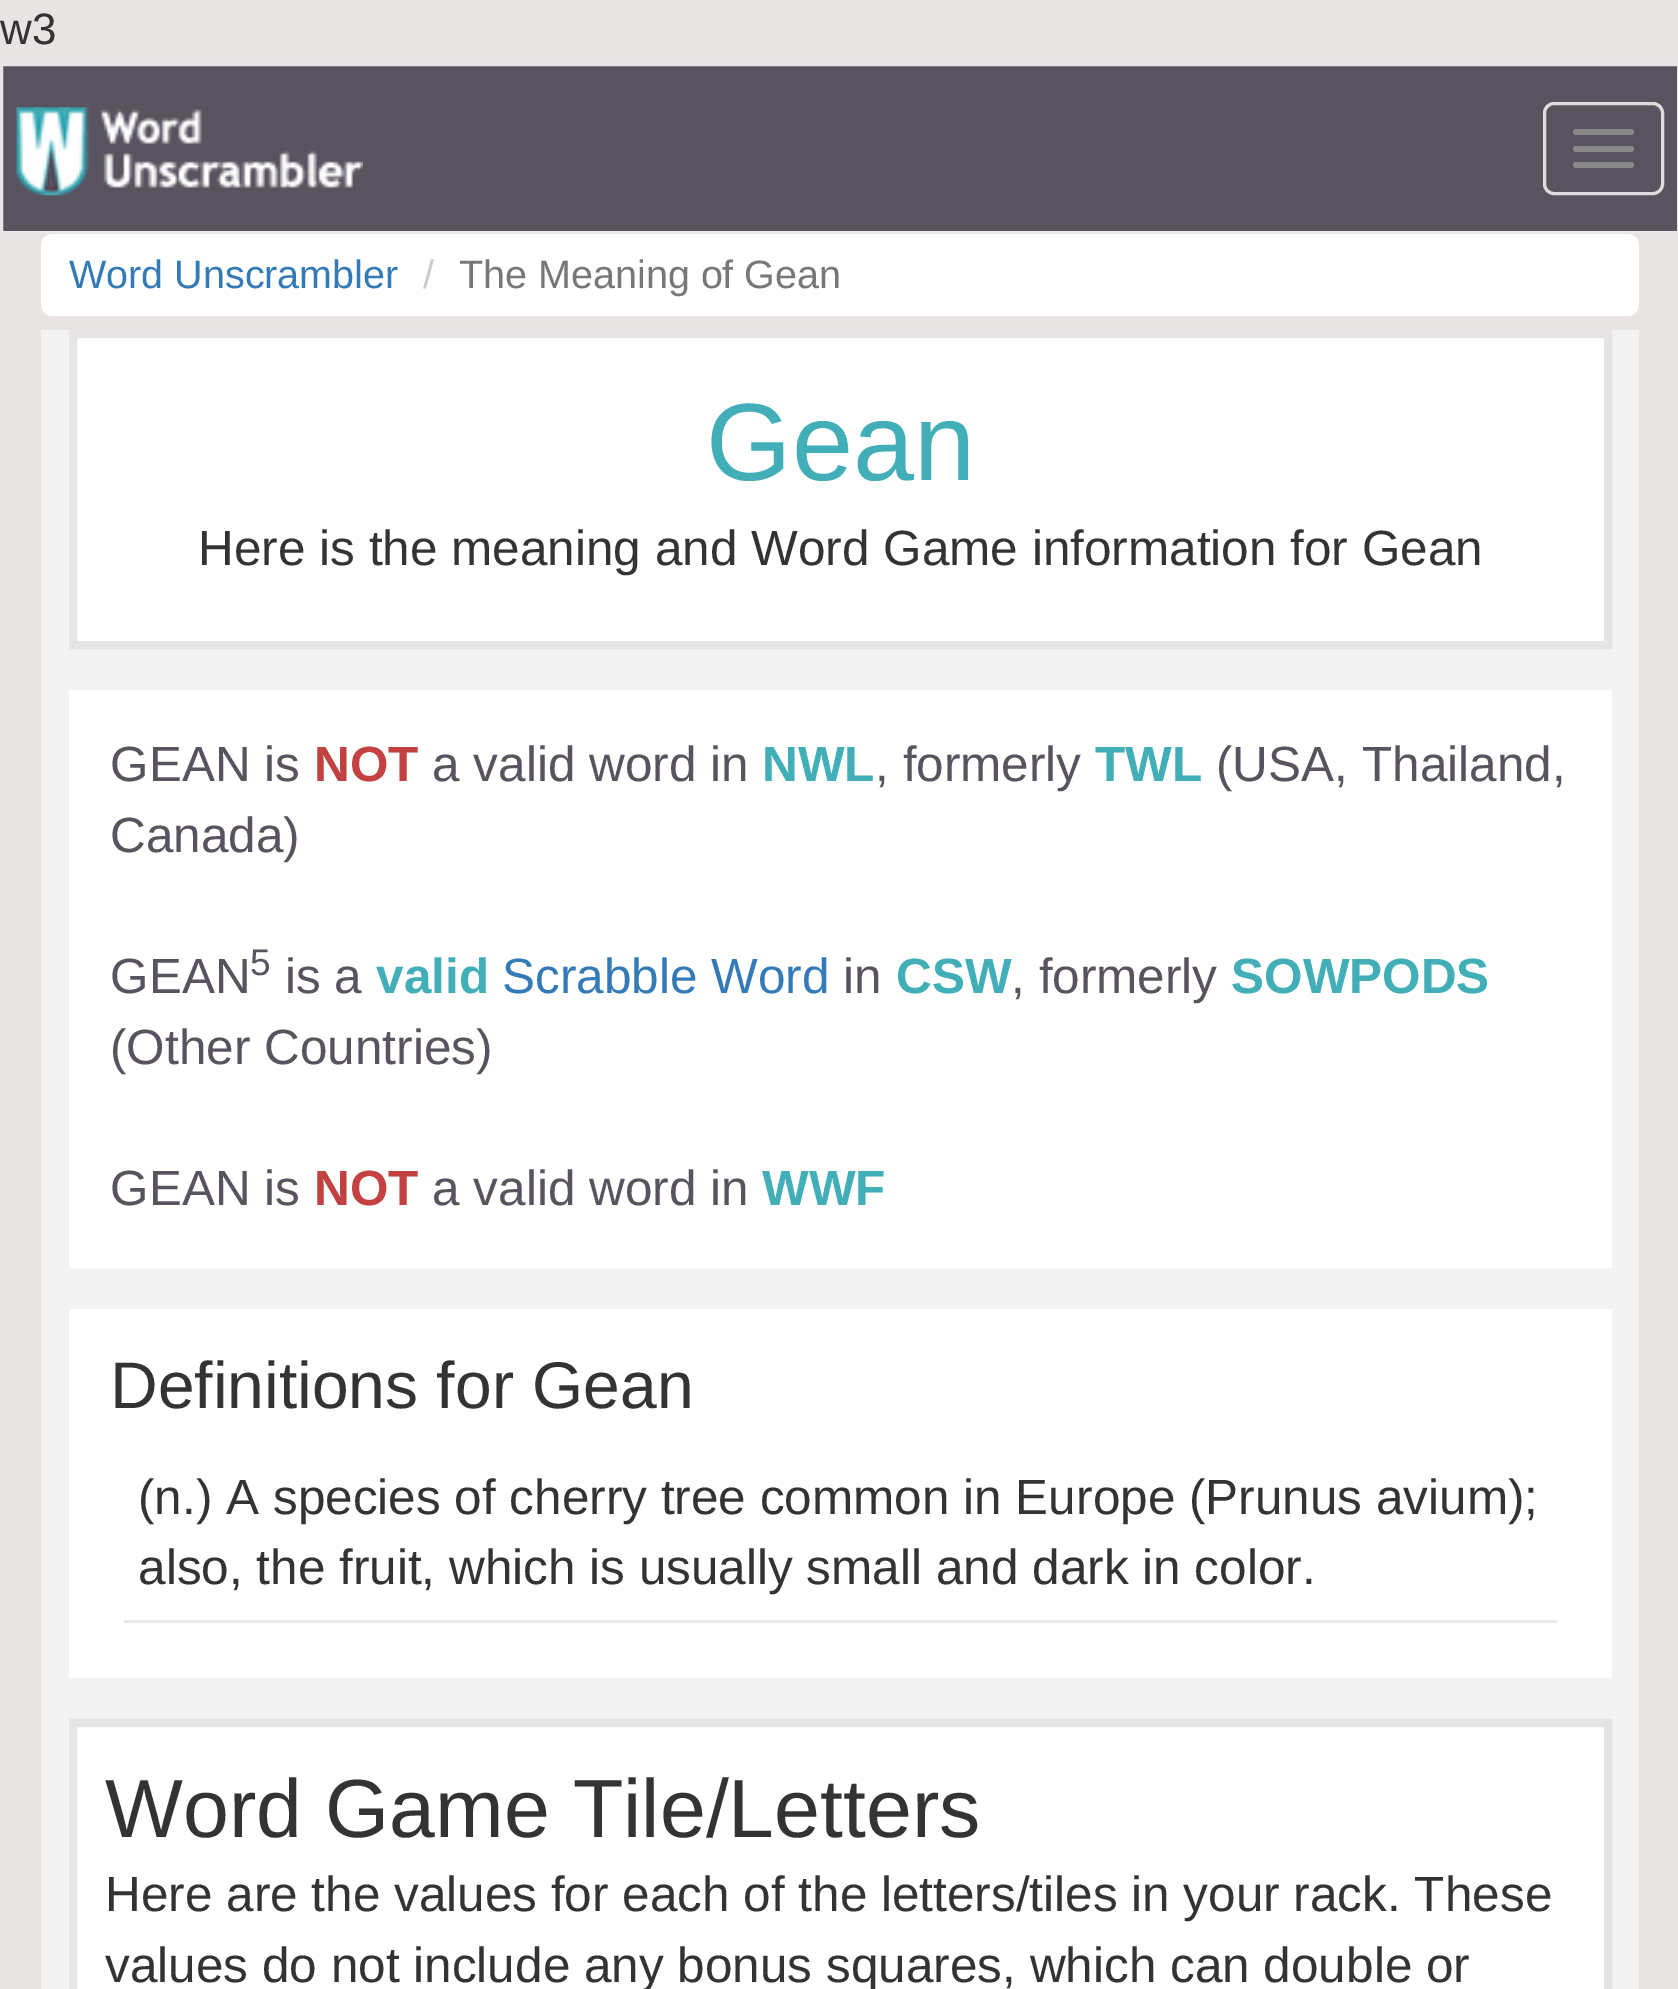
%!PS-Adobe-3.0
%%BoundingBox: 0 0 1678 1989
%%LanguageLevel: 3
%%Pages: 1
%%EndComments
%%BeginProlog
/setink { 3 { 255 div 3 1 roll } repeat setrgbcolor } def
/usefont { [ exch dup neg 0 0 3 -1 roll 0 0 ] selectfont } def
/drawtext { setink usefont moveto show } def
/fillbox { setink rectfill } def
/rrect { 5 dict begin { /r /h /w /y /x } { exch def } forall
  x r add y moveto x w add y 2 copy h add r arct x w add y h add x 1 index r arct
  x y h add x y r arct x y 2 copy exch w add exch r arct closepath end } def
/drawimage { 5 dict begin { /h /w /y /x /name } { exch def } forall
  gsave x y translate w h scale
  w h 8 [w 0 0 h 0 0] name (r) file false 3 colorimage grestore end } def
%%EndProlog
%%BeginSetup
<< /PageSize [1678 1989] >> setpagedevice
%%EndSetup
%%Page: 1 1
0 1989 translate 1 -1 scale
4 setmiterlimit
0 0 1678 1989 233 228 228 fillbox
(w3) 0 44 /LiberationSans-Regular 44 51 51 51 drawtext
89 83 96 setink
1.5 64.5 moveto 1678.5 64.5 lineto 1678.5 232.5 lineto 1.5 232.5 lineto closepath gsave fill grestore
231 231 231 setink
3 setlinewidth
stroke
(assets/img1.rgb) 16 107 347 89 drawimage
221 221 221 setink
1544.5 103.5 118 90 9.5 rrect stroke
136 136 136 setink
1573 129 61 6 3 rrect fill
1573 146 61 6 3 rrect fill
1573 162 61 6 3 rrect fill
255 255 255 setink
41 234 1598 82 11 rrect fill
(Word Unscrambler) 69 288 /LiberationSans-Regular 39.5 51 122 183 drawtext
(/) 423 288 /LiberationSans-Regular 39.5 204 204 204 drawtext
(The Meaning of Gean) 459 288 /LiberationSans-Regular 39.5 119 119 119 drawtext
41 330 1598 1659 243 243 243 fillbox
255 255 255 setink
73 334 moveto 1608 334 lineto 1608 645 lineto 73 645 lineto closepath gsave fill grestore
230 228 228 setink
8 setlinewidth
stroke
(Gean) 706 480 /LiberationSans-Regular 110 65 174 184 drawtext
(Here is the meaning and Word Game information for Gean) 198 565 /LiberationSans-Regular 49.5 51 51 51 drawtext
69 690 1543 578 255 255 255 fillbox
(GEAN is) 110 781 /LiberationSans-Regular 49.5 89 83 96 drawtext
(NOT) 314 781 /LiberationSans-Bold 49.5 196 65 65 drawtext
(a valid word in) 432 781 /LiberationSans-Regular 49.5 89 83 96 drawtext
(NWL) 762 781 /LiberationSans-Bold 49.5 65 174 184 drawtext
(, formerly) 875 781 /LiberationSans-Regular 49.5 89 83 96 drawtext
(TWL) 1095 781 /LiberationSans-Bold 49.5 65 174 184 drawtext
(\(USA, Thailand,) 1216 781 /LiberationSans-Regular 49.5 89 83 96 drawtext
(Canada\)) 110 852 /LiberationSans-Regular 49.5 89 83 96 drawtext
(GEAN) 110 993 /LiberationSans-Regular 49.5 89 83 96 drawtext
(5) 250 975 /LiberationSans-Regular 37 89 83 96 drawtext
(is a) 285 993 /LiberationSans-Regular 49.5 89 83 96 drawtext
(valid) 376 993 /LiberationSans-Bold 49.5 65 174 184 drawtext
(Scrabble Word) 502 993 /LiberationSans-Regular 49.5 51 122 183 drawtext
(in) 843 993 /LiberationSans-Regular 49.5 89 83 96 drawtext
(CSW) 896 993 /LiberationSans-Bold 49.5 65 174 184 drawtext
(, formerly) 1011 993 /LiberationSans-Regular 49.5 89 83 96 drawtext
(SOWPODS) 1231 993 /LiberationSans-Bold 49.5 65 174 184 drawtext
(\(Other Countries\)) 110 1064 /LiberationSans-Regular 49.5 89 83 96 drawtext
(GEAN is) 110 1205 /LiberationSans-Regular 49.5 89 83 96 drawtext
(NOT) 314 1205 /LiberationSans-Bold 49.5 196 65 65 drawtext
(a valid word in) 432 1205 /LiberationSans-Regular 49.5 89 83 96 drawtext
(WWF) 762 1205 /LiberationSans-Bold 49.5 65 174 184 drawtext
69 1309 1543 369 255 255 255 fillbox
(Definitions for Gean) 110 1408 /LiberationSans-Regular 66 51 51 51 drawtext
124 1620 1433 3 232 232 232 fillbox
(\(n.\) A species of cherry tree common in Europe \(Prunus avium\);) 138 1514 /LiberationSans-Regular 49.5 51 51 51 drawtext
(also, the fruit, which is usually small and dark in color.) 138 1584 /LiberationSans-Regular 49.5 51 51 51 drawtext
255 255 255 setink
73 1723 moveto 1608 1723 lineto 1608 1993 lineto 73 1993 lineto closepath gsave fill grestore
230 228 228 setink
stroke
(Word Game Tile/Letters) 105 1837 /LiberationSans-Regular 82.5 51 51 51 drawtext
(Here are the values for each of the letters/tiles in your rack. These) 105 1911 /LiberationSans-Regular 49.5 51 51 51 drawtext
(values do not include any bonus squares, which can double or) 105 1982 /LiberationSans-Regular 49.5 51 51 51 drawtext
showpage
%%EOF
